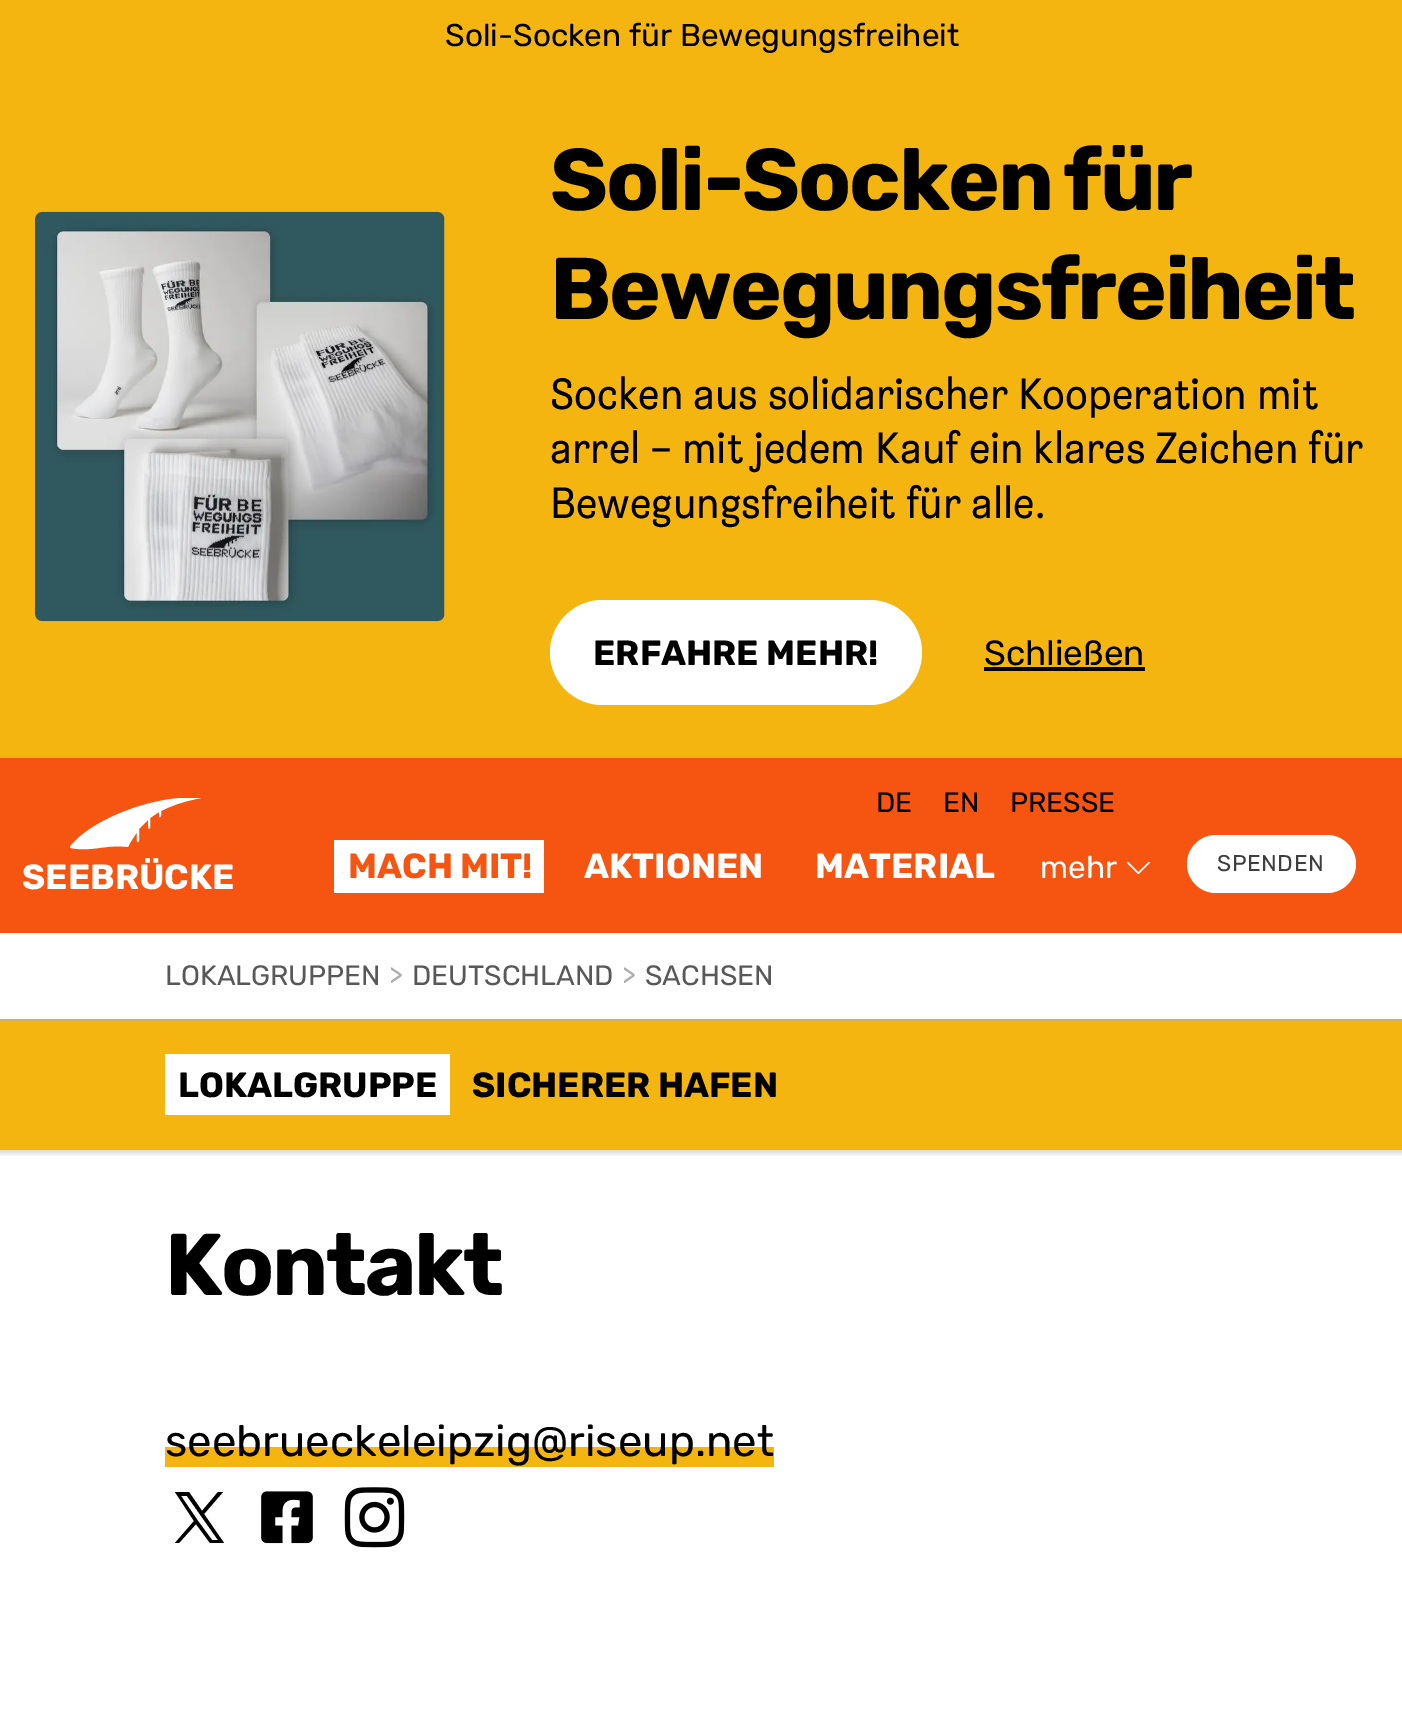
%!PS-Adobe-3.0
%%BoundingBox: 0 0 1402 1714
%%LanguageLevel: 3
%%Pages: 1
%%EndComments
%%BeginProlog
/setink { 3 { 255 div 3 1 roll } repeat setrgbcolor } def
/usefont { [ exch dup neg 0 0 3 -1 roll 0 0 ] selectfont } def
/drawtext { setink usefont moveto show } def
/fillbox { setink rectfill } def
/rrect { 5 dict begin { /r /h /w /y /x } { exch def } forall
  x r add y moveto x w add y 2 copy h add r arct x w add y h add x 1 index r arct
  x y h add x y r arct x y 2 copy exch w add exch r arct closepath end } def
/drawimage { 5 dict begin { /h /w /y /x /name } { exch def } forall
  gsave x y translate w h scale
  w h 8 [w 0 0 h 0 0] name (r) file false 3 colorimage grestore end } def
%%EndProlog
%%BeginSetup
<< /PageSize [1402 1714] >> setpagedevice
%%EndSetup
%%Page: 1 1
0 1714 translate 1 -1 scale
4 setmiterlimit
0 0 1402 1714 255 255 255 fillbox
0 0 1402 758 245 181 17 fillbox
(Soli-Socken für Bewegungsfreiheit) 445 46 /Rubik-Regular 31.5 0 0 0 drawtext
(assets/img1.rgb) 35 211 410 411 drawimage
/Rubik-Bold 87.5 usefont
550 210 moveto -5 0 32 -2.2 0 (Soli-Socken für) awidthshow
550 319 moveto -2.2 0 (Bewegungsfreiheit) ashow
(Socken aus solidarischer Kooperation mit) 550 409 /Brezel-Regular 43.75 0 0 0 drawtext
(arrel – mit jedem Kauf ein klares Zeichen für) 550 463 /Brezel-Regular 43.75 0 0 0 drawtext
(Bewegungsfreiheit für alle.) 550 518 /Brezel-Regular 43.75 0 0 0 drawtext
255 255 255 setink
550 600 372 105 52.5 rrect fill
(ERFAHRE MEHR!) 593 665 /Rubik-Bold 35 0 0 0 drawtext
(Schließen) 984 665 /Rubik-Regular 35 0 0 0 drawtext
984 667 161 4 0 0 0 fillbox
0 758 1402 175 245 85 17 fillbox
255 255 255 setink
78 849 moveto 68 848 68 848 75 841 curveto 99 817 148 800 181 798 curveto 201 798 lineto 186 801 175 804 161 811 curveto 161 812 162 818 159 817 curveto 159 812 lineto 150 818 lineto 150 820 151 829 149 829 curveto 148 829 148 821 148 820 curveto 139 829 lineto 139 831 140 842 138 842 curveto 136 843 137 833 137 832 curveto 134 837 130 842 128 847 curveto 121 846 114 846 107 847 curveto 97 848 88 850 78 849 curveto closepath fill
(SEEBRÜCKE) 22 889 /Rubik-Bold 35 255 255 255 drawtext
(DE) 876 812 /Rubik-Regular 28 0 0 0 drawtext
(EN) 943 812 /Rubik-Regular 28 0 0 0 drawtext
(PRESSE) 1010 812 /Rubik-Regular 28 0 0 0 drawtext
334 840 210 53 255 255 255 fillbox
(MACH MIT!) 348 878 /Rubik-Bold 35 245 85 17 drawtext
(AKTIONEN) 584 878 /Rubik-Bold 35 255 255 255 drawtext
(MATERIAL) 815 878 /Rubik-Bold 35 255 255 255 drawtext
(mehr) 1040 878 /Rubik-Regular 31.5 255 255 255 drawtext
(assets/img2.rgb) 1127 861 23 14 drawimage
1187 835 169 58 29 rrect fill
/Rubik-Regular 22.75 usefont
62 62 62 setink
1217 871 moveto 0.5 0 (SPENDEN) ashow
(LOKALGRUPPEN) 165 985 /Rubik-Regular 28 88 88 88 drawtext
(>) 389 985 /Rubik-Regular 28 173 173 173 drawtext
(DEUTSCHLAND) 412 985 /Rubik-Regular 28 88 88 88 drawtext
(>) 622 985 /Rubik-Regular 28 173 173 173 drawtext
(SACHSEN) 645 985 /Rubik-Regular 28 88 88 88 drawtext
0 1021 1402 129 245 181 17 fillbox
0 1019 1402 2 209 177 95 fillbox
165 1054 285 61 255 255 255 fillbox
(LOKALGRUPPE) 178 1097 /Rubik-Bold 35 0 0 0 drawtext
(SICHERER HAFEN) 472 1097 /Rubik-Bold 35 0 0 0 drawtext
gsave 0 1150 moveto 1402 1150 lineto 1402 1157 lineto 0 1157 lineto closepath clip newpath
<< /ShadingType 2 /ColorSpace /DeviceRGB /Coords [702 1150 702 1157] /Extend [true true] /Function << /FunctionType 2 /Domain [0 1] /C0 [0.851 0.851 0.851] /C1 [1 1 1] /N 1 >> >> shfill grestore
/Rubik-Bold 87.5 usefont
165 1295 moveto -2.2 0 (Kontakt) ashow
165 1447 609 20 245 181 17 fillbox
(seebrueckeleipzig@riseup.net) 165 1456 /Rubik-Regular 43.75 0 0 0 drawtext
204 1514 moveto 223 1492 lineto 218 1492 lineto 202 1511 lineto 189 1492 lineto 175 1492 lineto 194 1521 lineto 175 1543 lineto 179 1543 lineto 196 1524 lineto 210 1543 lineto 224 1543 lineto closepath 198 1521 moveto 181 1496 lineto 187 1496 lineto 218 1540 lineto 212 1540 lineto closepath fill
(assets/img3.rgb) 261 1491 52 53 drawimage
(assets/img4.rgb) 344 1487 61 61 drawimage
showpage
%%EOF
